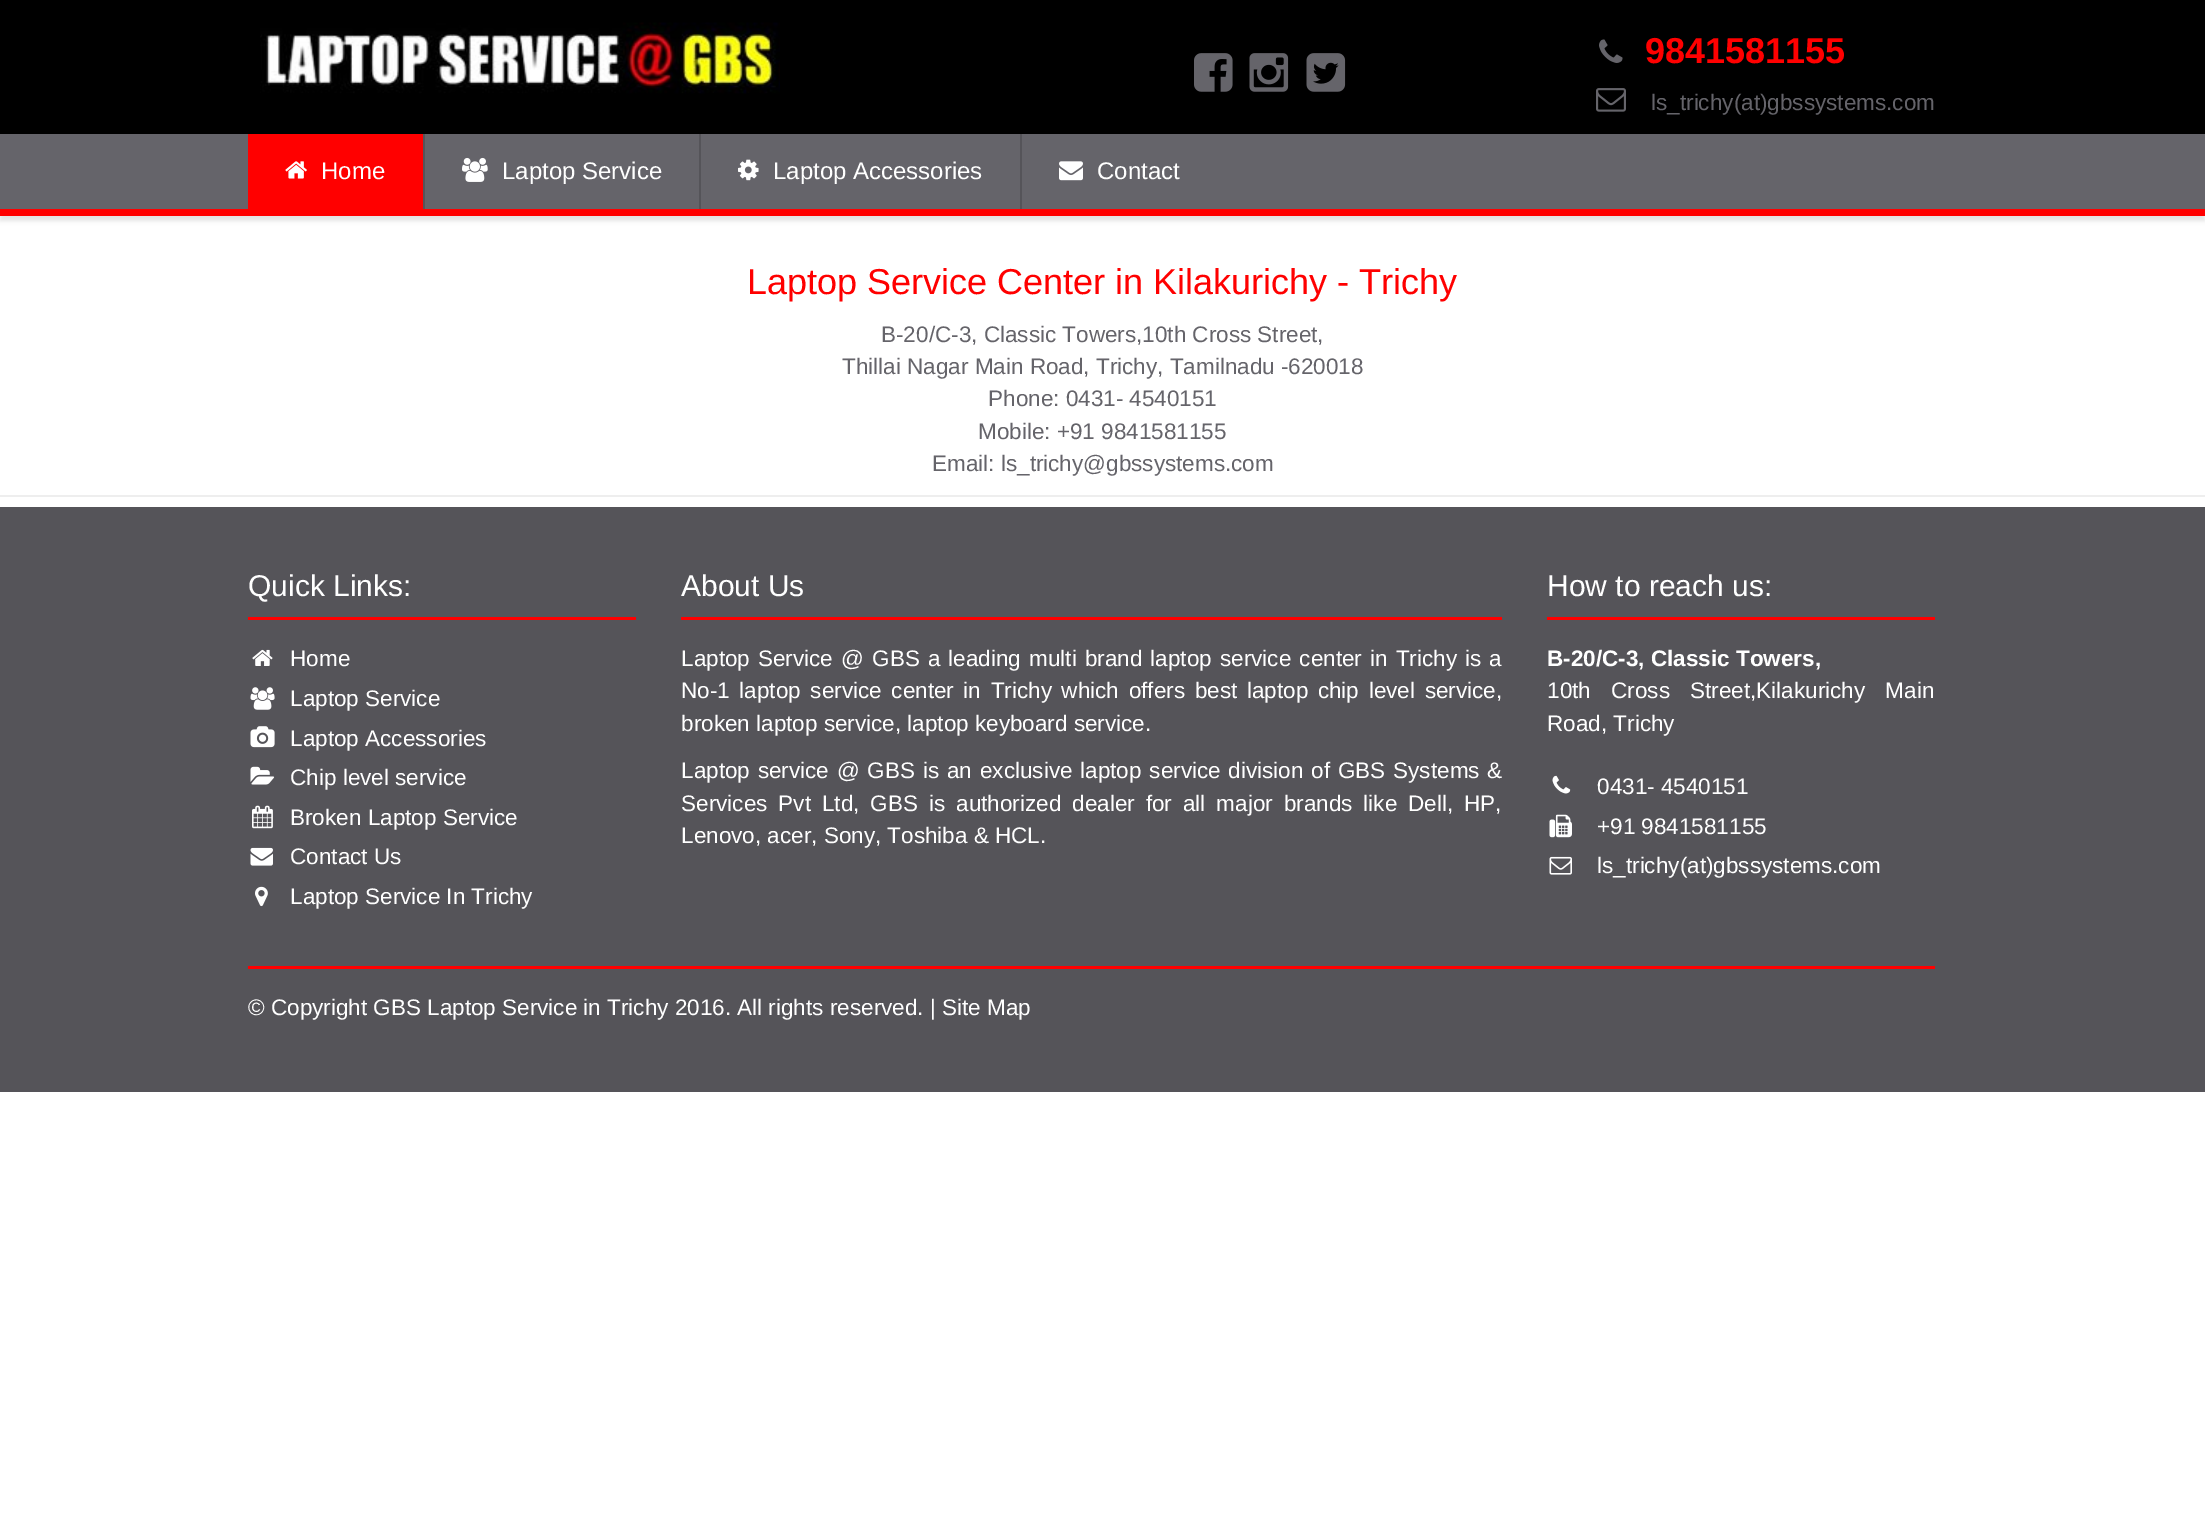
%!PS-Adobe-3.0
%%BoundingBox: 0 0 2205 1528
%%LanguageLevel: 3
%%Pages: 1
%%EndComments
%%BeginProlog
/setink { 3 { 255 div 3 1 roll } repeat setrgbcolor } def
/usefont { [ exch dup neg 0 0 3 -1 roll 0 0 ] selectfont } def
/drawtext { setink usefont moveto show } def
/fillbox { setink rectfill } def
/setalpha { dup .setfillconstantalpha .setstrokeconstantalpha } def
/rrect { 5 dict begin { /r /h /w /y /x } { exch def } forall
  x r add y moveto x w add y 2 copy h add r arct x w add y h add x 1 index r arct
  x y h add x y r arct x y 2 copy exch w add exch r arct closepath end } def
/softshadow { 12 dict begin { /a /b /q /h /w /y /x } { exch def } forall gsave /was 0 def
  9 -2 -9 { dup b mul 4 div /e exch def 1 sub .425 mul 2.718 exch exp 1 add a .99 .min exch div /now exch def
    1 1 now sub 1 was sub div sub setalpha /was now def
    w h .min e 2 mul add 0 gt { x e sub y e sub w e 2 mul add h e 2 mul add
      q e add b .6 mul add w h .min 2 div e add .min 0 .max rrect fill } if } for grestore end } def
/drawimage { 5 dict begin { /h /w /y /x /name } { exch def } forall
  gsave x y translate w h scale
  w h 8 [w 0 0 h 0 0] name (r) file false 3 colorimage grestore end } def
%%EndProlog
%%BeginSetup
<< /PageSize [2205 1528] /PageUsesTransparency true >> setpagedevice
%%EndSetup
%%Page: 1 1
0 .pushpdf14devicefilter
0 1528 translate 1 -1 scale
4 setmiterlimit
0 0 2205 1528 255 255 255 fillbox
0 0 2205 134 0 0 0 fillbox
(assets/img1.rgb) 260 22 520 72 drawimage
(assets/img2.rgb) 1194 53 39 39 drawimage
(assets/img3.rgb) 1249 53 40 39 drawimage
(assets/img4.rgb) 1306 53 40 39 drawimage
(assets/img5.rgb) 1599 39 24 24 drawimage
(9841581155) 1645 63 /LiberationSans-Bold 36 255 0 0 drawtext
(assets/img6.rgb) 1596 88 30 24 drawimage
(ls_trichy\(at\)gbssystems.com) 1651 110 /LiberationSans-Regular 22.5 101 100 106 drawtext
0 0 0 setink
0 138 2205 83 0 2 0.1 softshadow
0 134 2205 75 101 100 106 fillbox
0 209 2205 7 255 0 0 fillbox
423 134 2 75 85 84 89 fillbox
248 134 175 75 255 0 0 fillbox
(assets/img7.rgb) 285 161 22 18 drawimage
(Home) 321 179 /LiberationSans-Regular 24 255 255 255 drawtext
699 134 2 75 85 84 89 fillbox
(assets/img8.rgb) 462 157 26 25 drawimage
(Laptop Service) 502 179 /LiberationSans-Regular 24 255 255 255 drawtext
1020 134 2 75 85 84 89 fillbox
(assets/img9.rgb) 738 159 21 22 drawimage
(Laptop Accessories) 773 179 /LiberationSans-Regular 24 255 255 255 drawtext
(assets/img10.rgb) 1059 161 24 20 drawimage
(Contact) 1097 179 /LiberationSans-Regular 24 255 255 255 drawtext
(Laptop Service Center in Kilakurichy - Trichy) 747 294 /LiberationSans-Regular 36 255 0 0 drawtext
(B-20/C-3, Classic Towers,10th Cross Street,) 881 342 /LiberationSans-Regular 22.5 101 100 106 drawtext
(Thillai Nagar Main Road, Trichy, Tamilnadu -620018) 842 374 /LiberationSans-Regular 22.5 101 100 106 drawtext
(Phone: 0431- 4540151) 988 406 /LiberationSans-Regular 22.5 101 100 106 drawtext
(Mobile: +91 9841581155) 978 439 /LiberationSans-Regular 22.5 101 100 106 drawtext
(Email: ls_trichy@gbssystems.com) 932 471 /LiberationSans-Regular 22.5 101 100 106 drawtext
0 495 2205 2 238 238 238 fillbox
0 507 2205 585 85 84 89 fillbox
248 617 388 3 255 0 0 fillbox
(Quick Links:) 248 596 /LiberationSans-Regular 30 255 255 255 drawtext
(assets/img11.rgb) 252 649 21 17 drawimage
(Home) 290 666 /LiberationSans-Regular 22.5 255 255 255 drawtext
(assets/img12.rgb) 250 687 25 23 drawimage
(Laptop Service) 290 706 /LiberationSans-Regular 22.5 255 255 255 drawtext
(assets/img13.rgb) 250 726 25 22 drawimage
(Laptop Accessories) 290 746 /LiberationSans-Regular 22.5 255 255 255 drawtext
(assets/img14.rgb) 250 766 25 19 drawimage
(Chip level service) 290 785 /LiberationSans-Regular 22.5 255 255 255 drawtext
(assets/img15.rgb) 252 805 21 24 drawimage
(Broken Laptop Service) 290 825 /LiberationSans-Regular 22.5 255 255 255 drawtext
(assets/img16.rgb) 250 847 23 19 drawimage
(Contact Us) 290 864 /LiberationSans-Regular 22.5 255 255 255 drawtext
(assets/img17.rgb) 255 886 13 21 drawimage
(Laptop Service In Trichy) 290 904 /LiberationSans-Regular 22.5 255 255 255 drawtext
681 617 821 3 255 0 0 fillbox
(About Us) 681 596 /LiberationSans-Regular 30 255 255 255 drawtext
/LiberationSans-Regular 22.5 usefont
681 666 moveto 1.9 0 32 (Laptop Service @ GBS a leading multi brand laptop service center in Trichy is a) widthshow
681 698 moveto 3.4 0 32 (No-1 laptop service center in Trichy which offers best laptop chip level service,) widthshow
(broken laptop service, laptop keyboard service.) 681 731 /LiberationSans-Regular 22.5 255 255 255 drawtext
681 778 moveto 1.6 0 32 (Laptop service @ GBS is an exclusive laptop service division of GBS Systems &) widthshow
681 811 moveto 4.75 0 32 (Services Pvt Ltd, GBS is authorized dealer for all major brands like Dell, HP,) widthshow
(Lenovo, acer, Sony, Toshiba & HCL.) 681 843 /LiberationSans-Regular 22.5 255 255 255 drawtext
1547 617 388 3 255 0 0 fillbox
(How to reach us:) 1547 596 /LiberationSans-Regular 30 255 255 255 drawtext
(B-20/C-3, Classic Towers,) 1547 666 /LiberationSans-Bold 22.5 255 255 255 drawtext
/LiberationSans-Regular 22.5 usefont
1547 698 moveto 14 0 32 (10th Cross Street,Kilakurichy Main) widthshow
(Road, Trichy) 1547 731 /LiberationSans-Regular 22.5 255 255 255 drawtext
(assets/img18.rgb) 1552 775 19 19 drawimage
(0431- 4540151) 1597 794 /LiberationSans-Regular 22.5 255 255 255 drawtext
(assets/img19.rgb) 1549 814 23 24 drawimage
(+91 9841581155) 1597 834 /LiberationSans-Regular 22.5 255 255 255 drawtext
(assets/img20.rgb) 1549 856 23 19 drawimage
(ls_trichy\(at\)gbssystems.com) 1597 873 /LiberationSans-Regular 22.5 255 255 255 drawtext
248 966 1687 3 255 0 0 fillbox
(© Copyright GBS Laptop Service in Trichy 2016. All rights reserved. | Site Map) 248 1015 /LiberationSans-Regular 22.5 255 255 255 drawtext
.poppdf14devicefilter showpage
%%EOF
